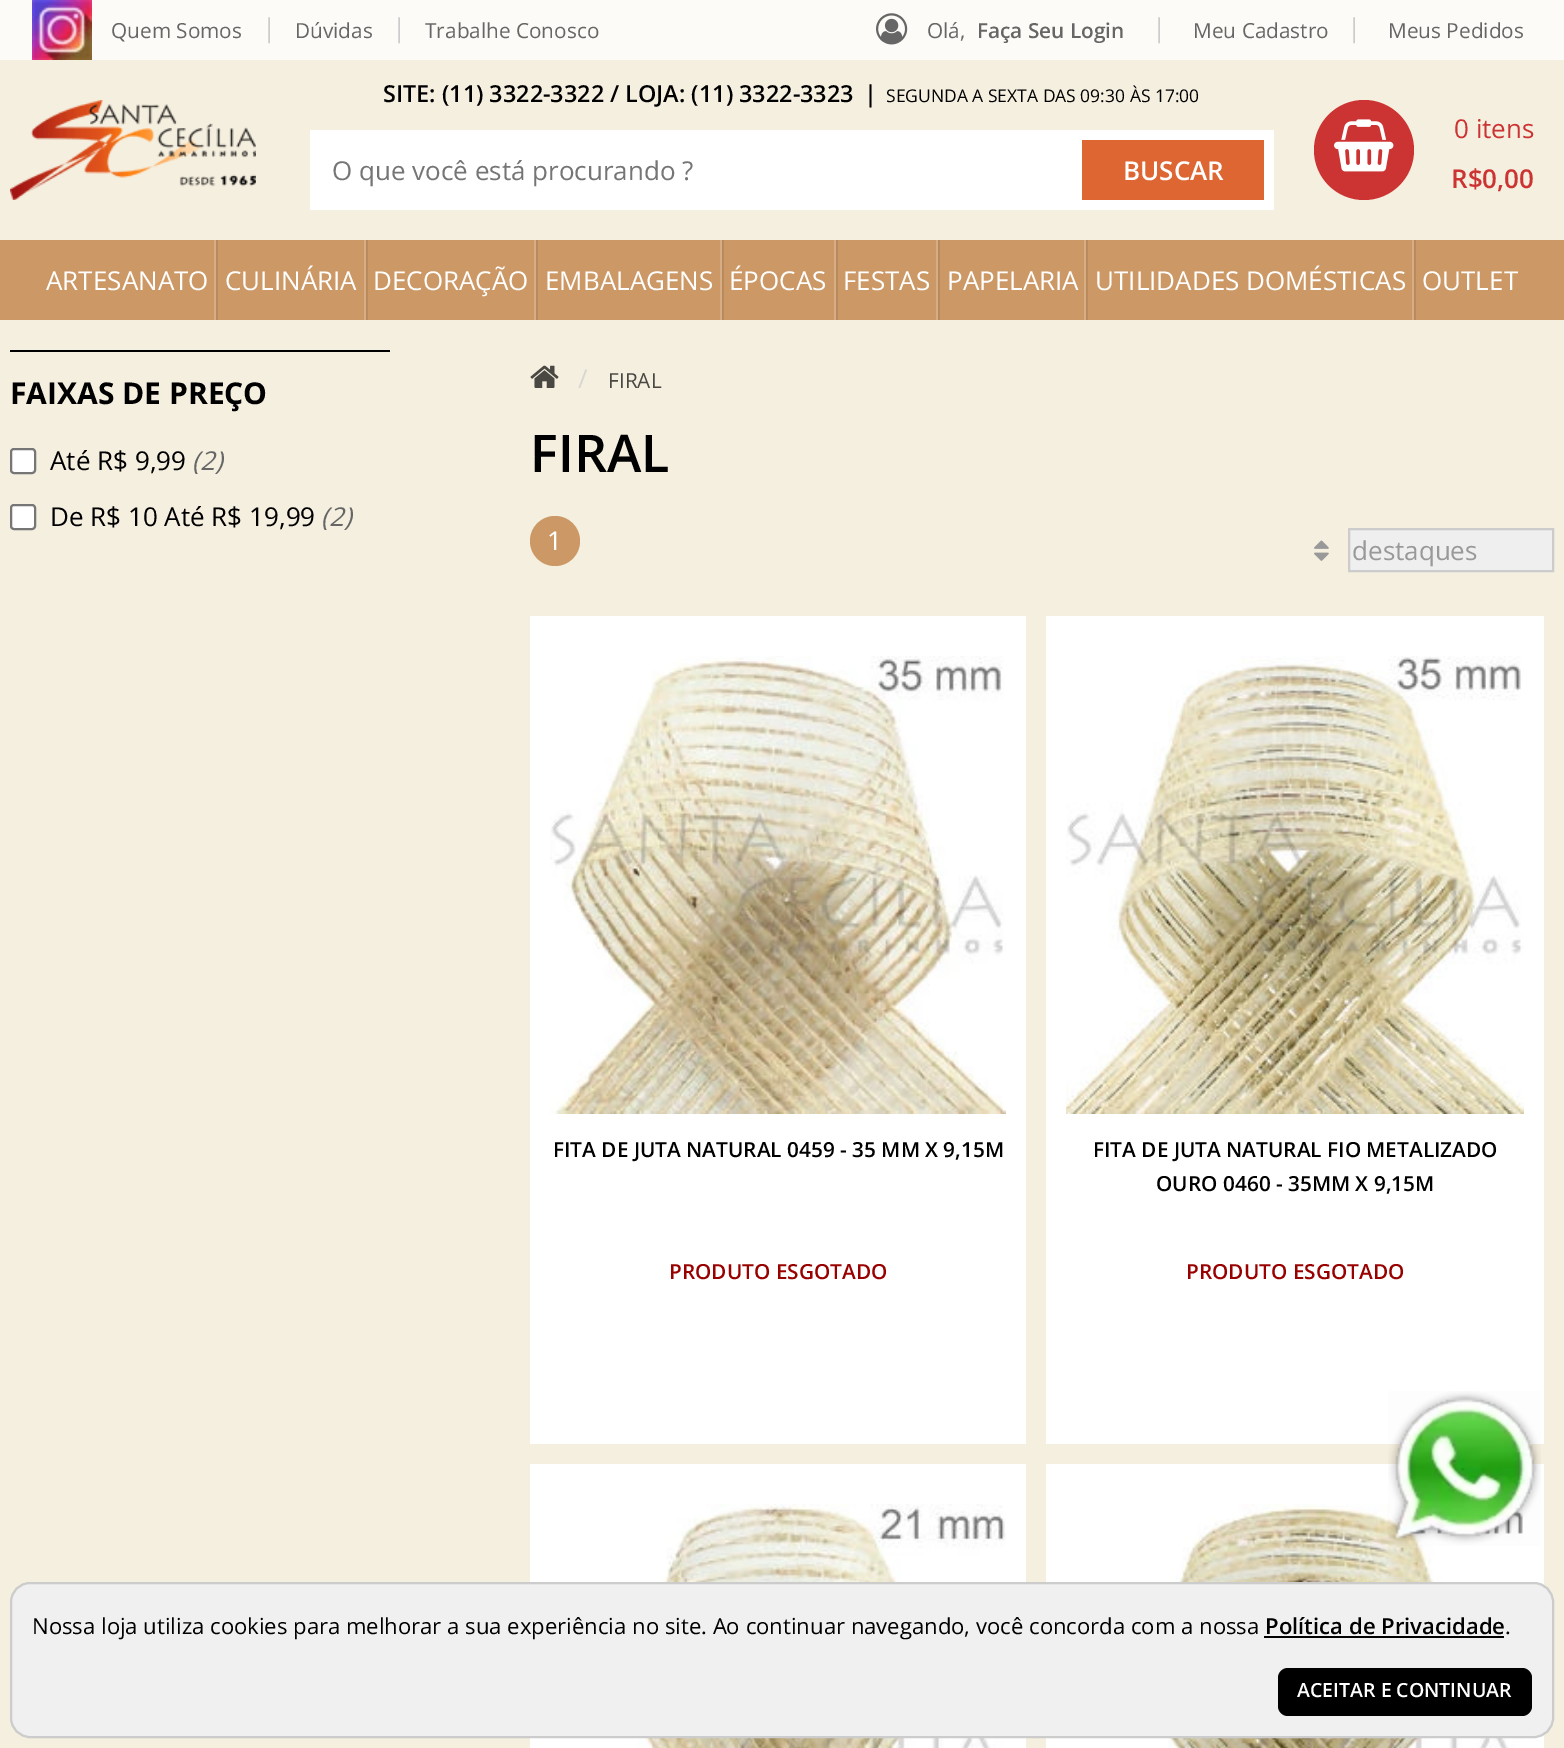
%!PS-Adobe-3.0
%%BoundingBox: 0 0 1564 1748
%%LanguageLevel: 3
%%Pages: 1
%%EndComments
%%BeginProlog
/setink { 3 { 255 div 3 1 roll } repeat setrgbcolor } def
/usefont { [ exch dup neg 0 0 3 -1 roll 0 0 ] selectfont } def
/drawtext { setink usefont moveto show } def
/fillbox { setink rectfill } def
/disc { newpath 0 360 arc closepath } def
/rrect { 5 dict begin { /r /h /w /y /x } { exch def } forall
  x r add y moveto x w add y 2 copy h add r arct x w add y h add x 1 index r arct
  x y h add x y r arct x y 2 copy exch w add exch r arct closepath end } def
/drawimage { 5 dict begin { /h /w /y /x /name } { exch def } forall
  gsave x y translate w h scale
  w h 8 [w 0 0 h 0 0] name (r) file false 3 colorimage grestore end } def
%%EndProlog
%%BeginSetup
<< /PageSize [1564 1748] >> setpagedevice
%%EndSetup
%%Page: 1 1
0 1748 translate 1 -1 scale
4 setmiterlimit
0 0 1564 1748 245 239 223 fillbox
0 0 1564 60 252 251 247 fillbox
0 240 1564 80 204 153 102 fillbox
(assets/img1.rgb) 32 0 60 60 drawimage
(Quem Somos) 111 38 /OpenSans-Regular 20.8 102 102 102 drawtext
(|) 262 37 /OpenSans-Regular 26 204 204 204 drawtext
(Dúvidas) 295 38 /OpenSans-Regular 20.8 102 102 102 drawtext
(|) 392 37 /OpenSans-Regular 26 204 204 204 drawtext
(Trabalhe Conosco) 425 38 /OpenSans-Regular 20.8 102 102 102 drawtext
(|) 1152 37 /OpenSans-Regular 26 204 204 204 drawtext
(Meu Cadastro) 1193 38 /OpenSans-Regular 20.8 102 102 102 drawtext
(|) 1347 37 /OpenSans-Regular 26 204 204 204 drawtext
(Meus Pedidos) 1388 38 /OpenSans-Regular 20.8 102 102 102 drawtext
(SITE: \(11\) 3322-3322 / LOJA: \(11\) 3322-3323) 383 102 /OpenSans-SemiBold 23.4 0 0 0 drawtext
(|) 864 102 /OpenSans-SemiBold 23.4 0 0 0 drawtext
(SEGUNDA A SEXTA DAS 09:30 ÀS 17:00) 886 102 /OpenSans-Regular 17.5 0 0 0 drawtext
(assets/img2.rgb) 10 100 246 100 drawimage
310 130 964 80 255 255 255 fillbox
(O que você está procurando ?) 332 180 /OpenSans-Regular 26 117 117 117 drawtext
1082 140 182 60 221 102 51 fillbox
(BUSCAR) 1123 180 /OpenSans-SemiBold 26 255 255 255 drawtext
204 51 51 setink
1364 150 50 disc fill
(assets/img3.rgb) 1334 119 60 53 drawimage
(0 itens) 1454 138 /OpenSans-Regular 26 204 51 51 drawtext
(R$0,00) 1451 188 /OpenSans-SemiBold 26 204 51 51 drawtext
214 240 2 80 214 173 133 fillbox
(ARTESANATO) 46 290 /OpenSans-Regular 26 255 255 255 drawtext
364 240 2 80 214 173 133 fillbox
216 240 2 80 184 138 92 fillbox
(CULINÁRIA) 225 290 /OpenSans-Regular 26 255 255 255 drawtext
534 240 2 80 214 173 133 fillbox
366 240 2 80 184 138 92 fillbox
(DECORAÇÃO) 373 290 /OpenSans-Regular 26 255 255 255 drawtext
720 240 2 80 214 173 133 fillbox
536 240 2 80 184 138 92 fillbox
(EMBALAGENS) 545 290 /OpenSans-Regular 26 255 255 255 drawtext
834 240 2 80 214 173 133 fillbox
722 240 2 80 184 138 92 fillbox
(ÉPOCAS) 729 290 /OpenSans-Regular 26 255 255 255 drawtext
936 240 2 80 214 173 133 fillbox
836 240 2 80 184 138 92 fillbox
(FESTAS) 843 290 /OpenSans-Regular 26 255 255 255 drawtext
1084 240 2 80 214 173 133 fillbox
938 240 2 80 184 138 92 fillbox
(PAPELARIA) 947 290 /OpenSans-Regular 26 255 255 255 drawtext
1412 240 2 80 214 173 133 fillbox
1086 240 2 80 184 138 92 fillbox
(UTILIDADES DOMÉSTICAS) 1095 290 /OpenSans-Regular 26 255 255 255 drawtext
1414 240 2 80 184 138 92 fillbox
(OUTLET) 1422 290 /OpenSans-Regular 26 255 255 255 drawtext
10 350 380 2 0 0 0 fillbox
(FAIXAS DE PREÇO) 10 404 /OpenSans-Bold 30 0 0 0 drawtext
255 255 255 setink
11 449 24 24 3 rrect gsave fill grestore
118 118 118 setink
2 setlinewidth
stroke
(Até R$ 9,99) 50 470 /OpenSans-Regular 26 0 0 0 drawtext
(\(2\)) 192 470 /OpenSans-Italic 26 102 102 102 drawtext
255 255 255 setink
11 505 24 24 3 rrect gsave fill grestore
118 118 118 setink
stroke
(De R$ 10 Até R$ 19,99) 50 526 /OpenSans-Regular 26 0 0 0 drawtext
(\(2\)) 321 526 /OpenSans-Italic 26 102 102 102 drawtext
(assets/img4.rgb) 530 365 29 23 drawimage
(/) 578 388 /OpenSans-Regular 26 216 215 210 drawtext
(FIRAL) 608 388 /OpenSans-Regular 20.8 74 72 67 drawtext
(FIRAL) 530 472 /OpenSans-SemiBold 52 0 0 0 drawtext
204 153 102 setink
555 541 25 disc fill
(1) 547 550 /OpenSans-Regular 26 255 255 255 drawtext
(assets/img5.rgb) 1314 540 15 21 drawimage
239 239 239 setink
1349 529 moveto 1553 529 lineto 1553 571 lineto 1349 571 lineto closepath gsave fill grestore
204 204 204 setink
stroke
(destaques) 1352 560 /OpenSans-Regular 26 153 153 153 drawtext
530 616 496 828 255 255 255 fillbox
(assets/img6.rgb) 550 656 456 458 drawimage
(FITA DE JUTA NATURAL 0459 - 35 MM X 9,15M) 553 1157 /OpenSans-SemiBold 20.8 0 0 0 drawtext
(PRODUTO ESGOTADO) 669 1279 /OpenSans-SemiBold 20.8 153 0 0 drawtext
1046 616 498 828 255 255 255 fillbox
(assets/img7.rgb) 1066 656 458 458 drawimage
(FITA DE JUTA NATURAL FIO METALIZADO) 1093 1157 /OpenSans-SemiBold 20.8 0 0 0 drawtext
(OURO 0460 - 35MM X 9,15M) 1156 1191 /OpenSans-SemiBold 20.8 0 0 0 drawtext
(PRODUTO ESGOTADO) 1186 1279 /OpenSans-SemiBold 20.8 153 0 0 drawtext
530 1464 496 284 255 255 255 fillbox
(assets/img8.rgb) 550 1504 456 244 drawimage
1046 1464 498 284 255 255 255 fillbox
(assets/img9.rgb) 1066 1504 457 244 drawimage
(assets/img10.rgb) 1388 1391 153 155 drawimage
(assets/img11.rgb) 876 13 32 32 drawimage
(Olá,) 927 38 /OpenSans-Regular 20.8 102 102 102 drawtext
(Faça Seu Login) 977 38 /OpenSans-SemiBold 20.8 102 102 102 drawtext
240 240 240 setink
11 1583 1542 154 19 rrect gsave fill grestore
204 204 204 setink
stroke
(Nossa loja utiliza cookies para melhorar a sua experiência no site. Ao continuar navegando, você concorda com a nossa) 32 1634 /OpenSans-Regular 22.1 0 0 0 drawtext
(Política de Privacidade) 1265 1634 /OpenSans-SemiBold 22.1 0 0 0 drawtext
1264 1636 240 2 0 0 0 fillbox
(.) 1505 1634 /OpenSans-Regular 22.1 0 0 0 drawtext
1278 1668 254 48 10 rrect fill
(ACEITAR E CONTINUAR) 1297 1697 /OpenSans-SemiBold 19.5 255 255 255 drawtext
showpage
%%EOF
